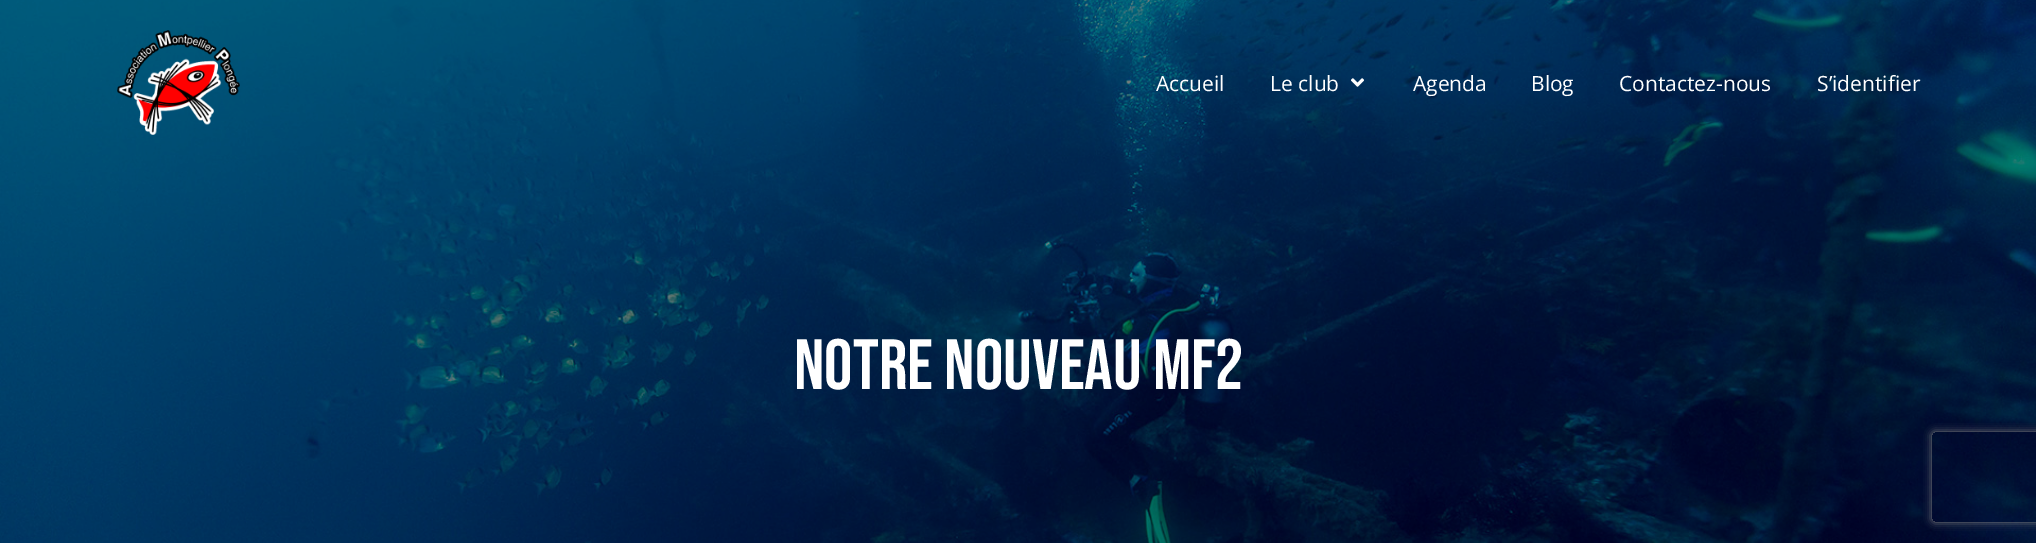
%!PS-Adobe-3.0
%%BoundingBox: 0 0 2036 543
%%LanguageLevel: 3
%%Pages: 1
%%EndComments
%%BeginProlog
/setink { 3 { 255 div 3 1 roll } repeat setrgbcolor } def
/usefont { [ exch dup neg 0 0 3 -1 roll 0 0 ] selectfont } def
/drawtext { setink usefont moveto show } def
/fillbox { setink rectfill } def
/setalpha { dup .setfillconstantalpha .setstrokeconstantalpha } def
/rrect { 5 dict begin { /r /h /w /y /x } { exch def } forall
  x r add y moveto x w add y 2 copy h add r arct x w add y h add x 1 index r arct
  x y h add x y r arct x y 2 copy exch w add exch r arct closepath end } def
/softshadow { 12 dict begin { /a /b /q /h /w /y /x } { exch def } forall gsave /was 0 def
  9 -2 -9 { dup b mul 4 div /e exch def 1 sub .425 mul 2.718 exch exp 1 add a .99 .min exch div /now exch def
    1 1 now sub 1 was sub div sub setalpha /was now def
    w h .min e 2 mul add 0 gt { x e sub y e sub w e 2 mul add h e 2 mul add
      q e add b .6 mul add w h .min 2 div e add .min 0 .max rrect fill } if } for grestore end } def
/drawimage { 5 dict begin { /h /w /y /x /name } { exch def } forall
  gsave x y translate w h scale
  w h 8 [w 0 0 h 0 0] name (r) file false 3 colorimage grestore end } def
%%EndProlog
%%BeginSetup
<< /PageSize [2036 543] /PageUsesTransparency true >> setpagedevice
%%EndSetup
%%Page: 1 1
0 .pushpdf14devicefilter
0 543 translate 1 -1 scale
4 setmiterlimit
0 0 2036 543 255 255 255 fillbox
(assets/img3.rgb) 0 0 2036 543 drawimage
(assets/img1.rgb) 117 30 123 105 drawimage
(Accueil) 1156 91 /OpenSans-Regular 21 255 255 255 drawtext
(Le club) 1270 91 /OpenSans-Regular 21 255 255 255 drawtext
(assets/img2.rgb) 1351 78 13 9 drawimage
(Agenda) 1413 91 /OpenSans-Regular 21 255 255 255 drawtext
(Blog) 1531 91 /OpenSans-Regular 21 255 255 255 drawtext
(Contactez-nous) 1619 91 /OpenSans-Regular 21 255 255 255 drawtext
(S’identifier) 1817 91 /OpenSans-Regular 21 255 255 255 drawtext
(Notre nouveau MF2) 794 389 /BebasNeue-Regular 71 255 255 255 drawtext
gsave
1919 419 moveto 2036 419 lineto 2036 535 lineto 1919 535 lineto closepath 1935 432 moveto 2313 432 lineto 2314.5 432 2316 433.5 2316 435 curveto 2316 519 lineto 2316 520.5 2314.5 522 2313 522 curveto 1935 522 lineto 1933.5 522 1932 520.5 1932 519 curveto 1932 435 lineto 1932 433.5 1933.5 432 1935 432 curveto closepath eoclip newpath
128 128 128 setink
1932 432 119 90 3 4 1 softshadow
grestore
.poppdf14devicefilter showpage
%%EOF
